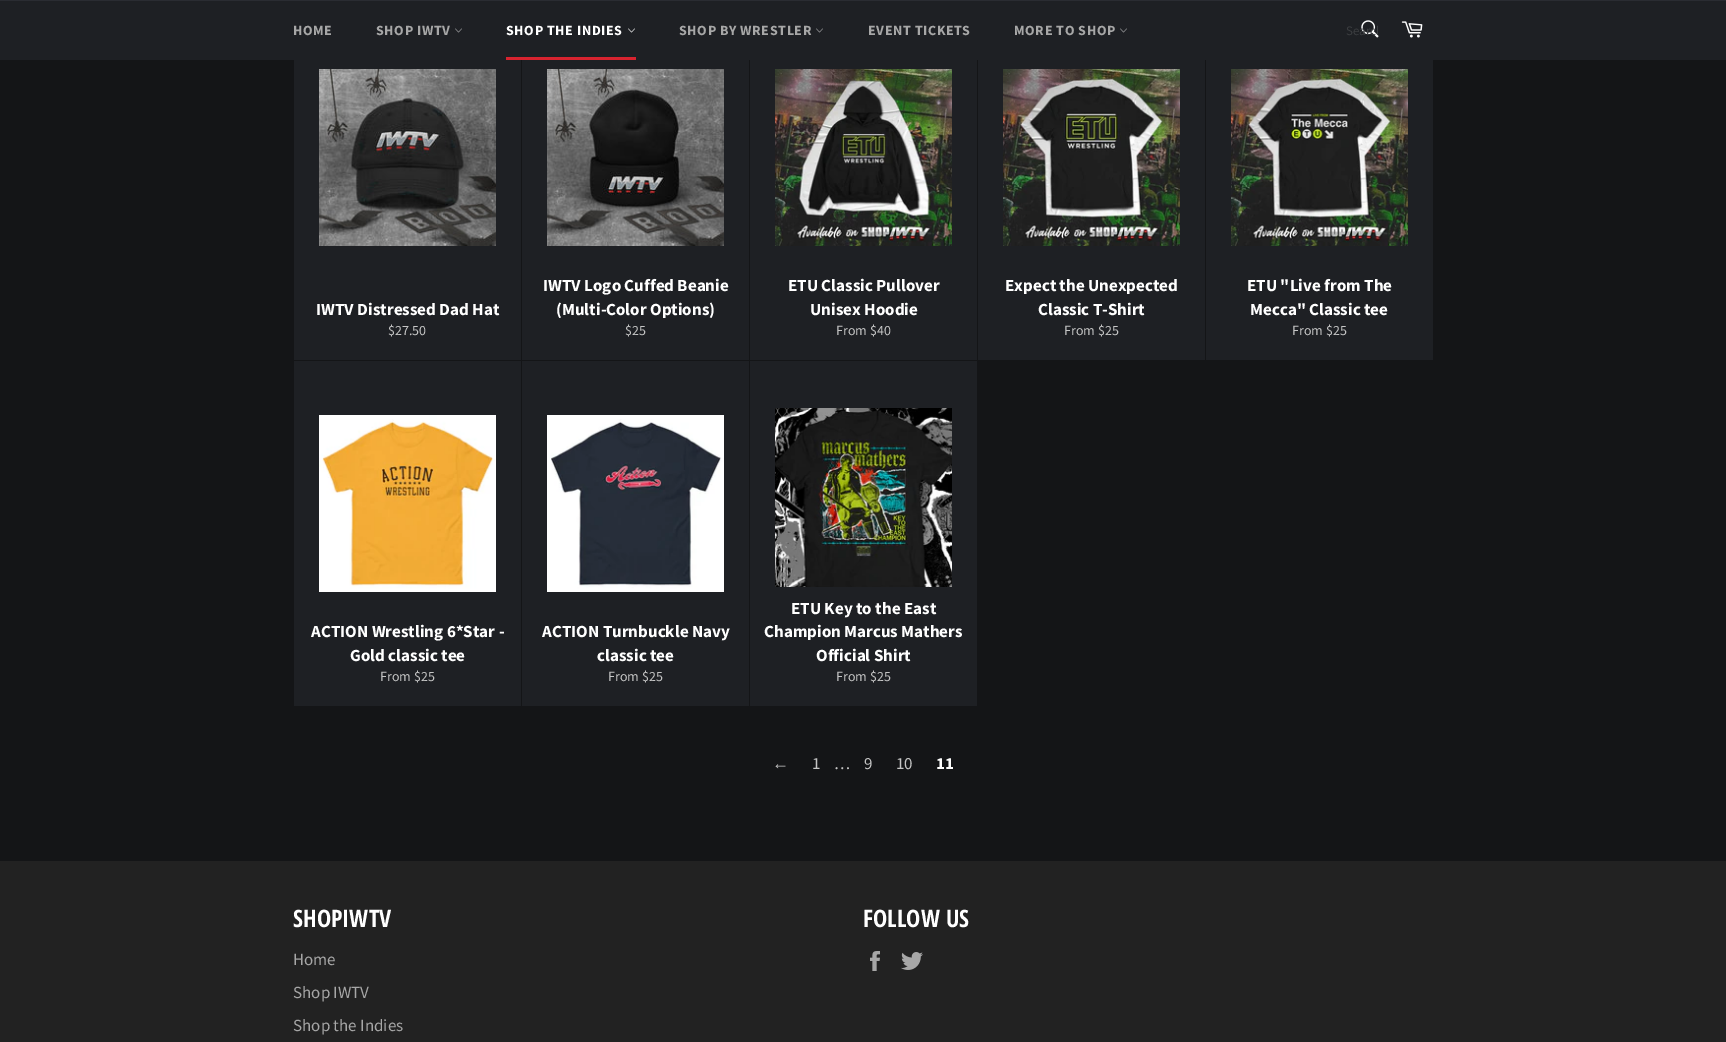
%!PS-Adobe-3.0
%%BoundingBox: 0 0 1726 1042
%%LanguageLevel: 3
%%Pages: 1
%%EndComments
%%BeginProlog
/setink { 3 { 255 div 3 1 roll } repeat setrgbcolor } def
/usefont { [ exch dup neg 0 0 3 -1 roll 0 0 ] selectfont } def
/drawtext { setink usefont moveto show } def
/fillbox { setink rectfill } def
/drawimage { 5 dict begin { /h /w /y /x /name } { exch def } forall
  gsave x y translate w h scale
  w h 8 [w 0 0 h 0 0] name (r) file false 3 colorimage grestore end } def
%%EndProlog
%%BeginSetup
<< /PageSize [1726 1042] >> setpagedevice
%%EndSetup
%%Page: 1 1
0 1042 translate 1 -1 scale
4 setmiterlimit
0 0 1726 1042 20 21 23 fillbox
0 1 1726 59 30 32 36 fillbox
0 0 1726 1 42 44 50 fillbox
/SourceSansPro-Bold 14 usefont
167 167 167 setink
293 35 moveto 0.6 0 (HOME) ashow
376 35 moveto 0.6 0 (SHOP IWTV) ashow
(assets/img1.rgb) 455 28 7 5 drawimage
255 255 255 setink
506 35 moveto 0.6 0 (SHOP THE INDIES) ashow
(assets/img2.rgb) 628 28 7 5 drawimage
506 57 130 3 216 35 47 fillbox
167 167 167 setink
679 35 moveto 0.6 0 (SHOP BY WRESTLER) ashow
(assets/img1.rgb) 816 28 7 5 drawimage
868 35 moveto 0.6 0 (EVENT TICKETS) ashow
1014 35 moveto 0.6 0 (MORE TO SHOP) ashow
(assets/img1.rgb) 1120 28 7 5 drawimage
(assets/img3.rgb) 1361 20 18 18 drawimage
gsave
1346 22 32 17 rectclip
(Search) 1346 35 /SourceSansPro-Regular 13 59 61 64 drawtext
grestore
(assets/img4.rgb) 1401 21 22 17 drawimage
294 60 227 300 30 32 36 fillbox
(assets/img5.rgb) 319 69 177 177 drawimage
(IWTV Distressed Dad Hat) 316 315 /SourceSansPro-Bold 17 255 255 255 drawtext
($27.50) 388 335 /SourceSansPro-Regular 14 197 197 197 drawtext
522 60 227 300 30 32 36 fillbox
(assets/img6.rgb) 547 69 177 177 drawimage
(IWTV Logo Cuffed Beanie) 543 291 /SourceSansPro-Bold 17 255 255 255 drawtext
(\(Multi-Color Options\)) 556 315 /SourceSansPro-Bold 17 255 255 255 drawtext
($25) 625 335 /SourceSansPro-Regular 14 197 197 197 drawtext
750 60 227 300 30 32 36 fillbox
(assets/img7.rgb) 775 69 177 177 drawimage
(ETU Classic Pullover) 788 291 /SourceSansPro-Bold 17 255 255 255 drawtext
(Unisex Hoodie) 810 315 /SourceSansPro-Bold 17 255 255 255 drawtext
(From $40) 836 335 /SourceSansPro-Regular 14 197 197 197 drawtext
978 60 227 300 30 32 36 fillbox
(assets/img8.rgb) 1003 69 177 177 drawimage
(Expect the Unexpected) 1005 291 /SourceSansPro-Bold 17 255 255 255 drawtext
(Classic T-Shirt) 1038 315 /SourceSansPro-Bold 17 255 255 255 drawtext
(From $25) 1064 335 /SourceSansPro-Regular 14 197 197 197 drawtext
1206 60 227 300 30 32 36 fillbox
(assets/img9.rgb) 1231 69 177 177 drawimage
(ETU "Live from The) 1247 291 /SourceSansPro-Bold 17 255 255 255 drawtext
(Mecca" Classic tee) 1250 315 /SourceSansPro-Bold 17 255 255 255 drawtext
(From $25) 1292 335 /SourceSansPro-Regular 14 197 197 197 drawtext
294 361 227 345 30 32 36 fillbox
(assets/img10.rgb) 319 415 177 177 drawimage
(ACTION Wrestling 6*Star -) 311 637 /SourceSansPro-Bold 17 255 255 255 drawtext
(Gold classic tee) 350 661 /SourceSansPro-Bold 17 255 255 255 drawtext
(From $25) 380 681 /SourceSansPro-Regular 14 197 197 197 drawtext
522 361 227 345 30 32 36 fillbox
(assets/img11.rgb) 547 415 177 177 drawimage
(ACTION Turnbuckle Navy) 542 637 /SourceSansPro-Bold 17 255 255 255 drawtext
(classic tee) 597 661 /SourceSansPro-Bold 17 255 255 255 drawtext
(From $25) 608 681 /SourceSansPro-Regular 14 197 197 197 drawtext
750 361 227 345 30 32 36 fillbox
(assets/img12.rgb) 775 408 177 179 drawimage
(ETU Key to the East) 791 614 /SourceSansPro-Bold 17 255 255 255 drawtext
(Champion Marcus Mathers) 764 637 /SourceSansPro-Bold 17 255 255 255 drawtext
(Official Shirt) 816 661 /SourceSansPro-Bold 17 255 255 255 drawtext
(From $25) 836 681 /SourceSansPro-Regular 14 197 197 197 drawtext
(←) 772 769 /LiberationSans-Regular 17 197 197 197 drawtext
(1) 812 769 /SourceSansPro-Regular 17 197 197 197 drawtext
(…) 834 769 /SourceSansPro-Regular 17 197 197 197 drawtext
(9) 864 769 /SourceSansPro-Regular 17 197 197 197 drawtext
(10) 896 769 /SourceSansPro-Regular 17 197 197 197 drawtext
(11) 936 769 /SourceSansPro-Bold 17 255 255 255 drawtext
0 861 1726 181 34 34 34 fillbox
(SHOPIWTV) 293 927 /OpenSansCondensed-Bold 24 255 255 255 drawtext
(Home) 293 965 /SourceSansPro-Regular 17 167 167 167 drawtext
(Shop IWTV) 293 998 /SourceSansPro-Regular 17 167 167 167 drawtext
(Shop the Indies) 293 1031 /SourceSansPro-Regular 17 167 167 167 drawtext
(FOLLOW US) 863 927 /OpenSansCondensed-Bold 24 255 255 255 drawtext
(assets/img13.rgb) 870 951 10 20 drawimage
(assets/img14.rgb) 901 952 22 18 drawimage
showpage
%%EOF
